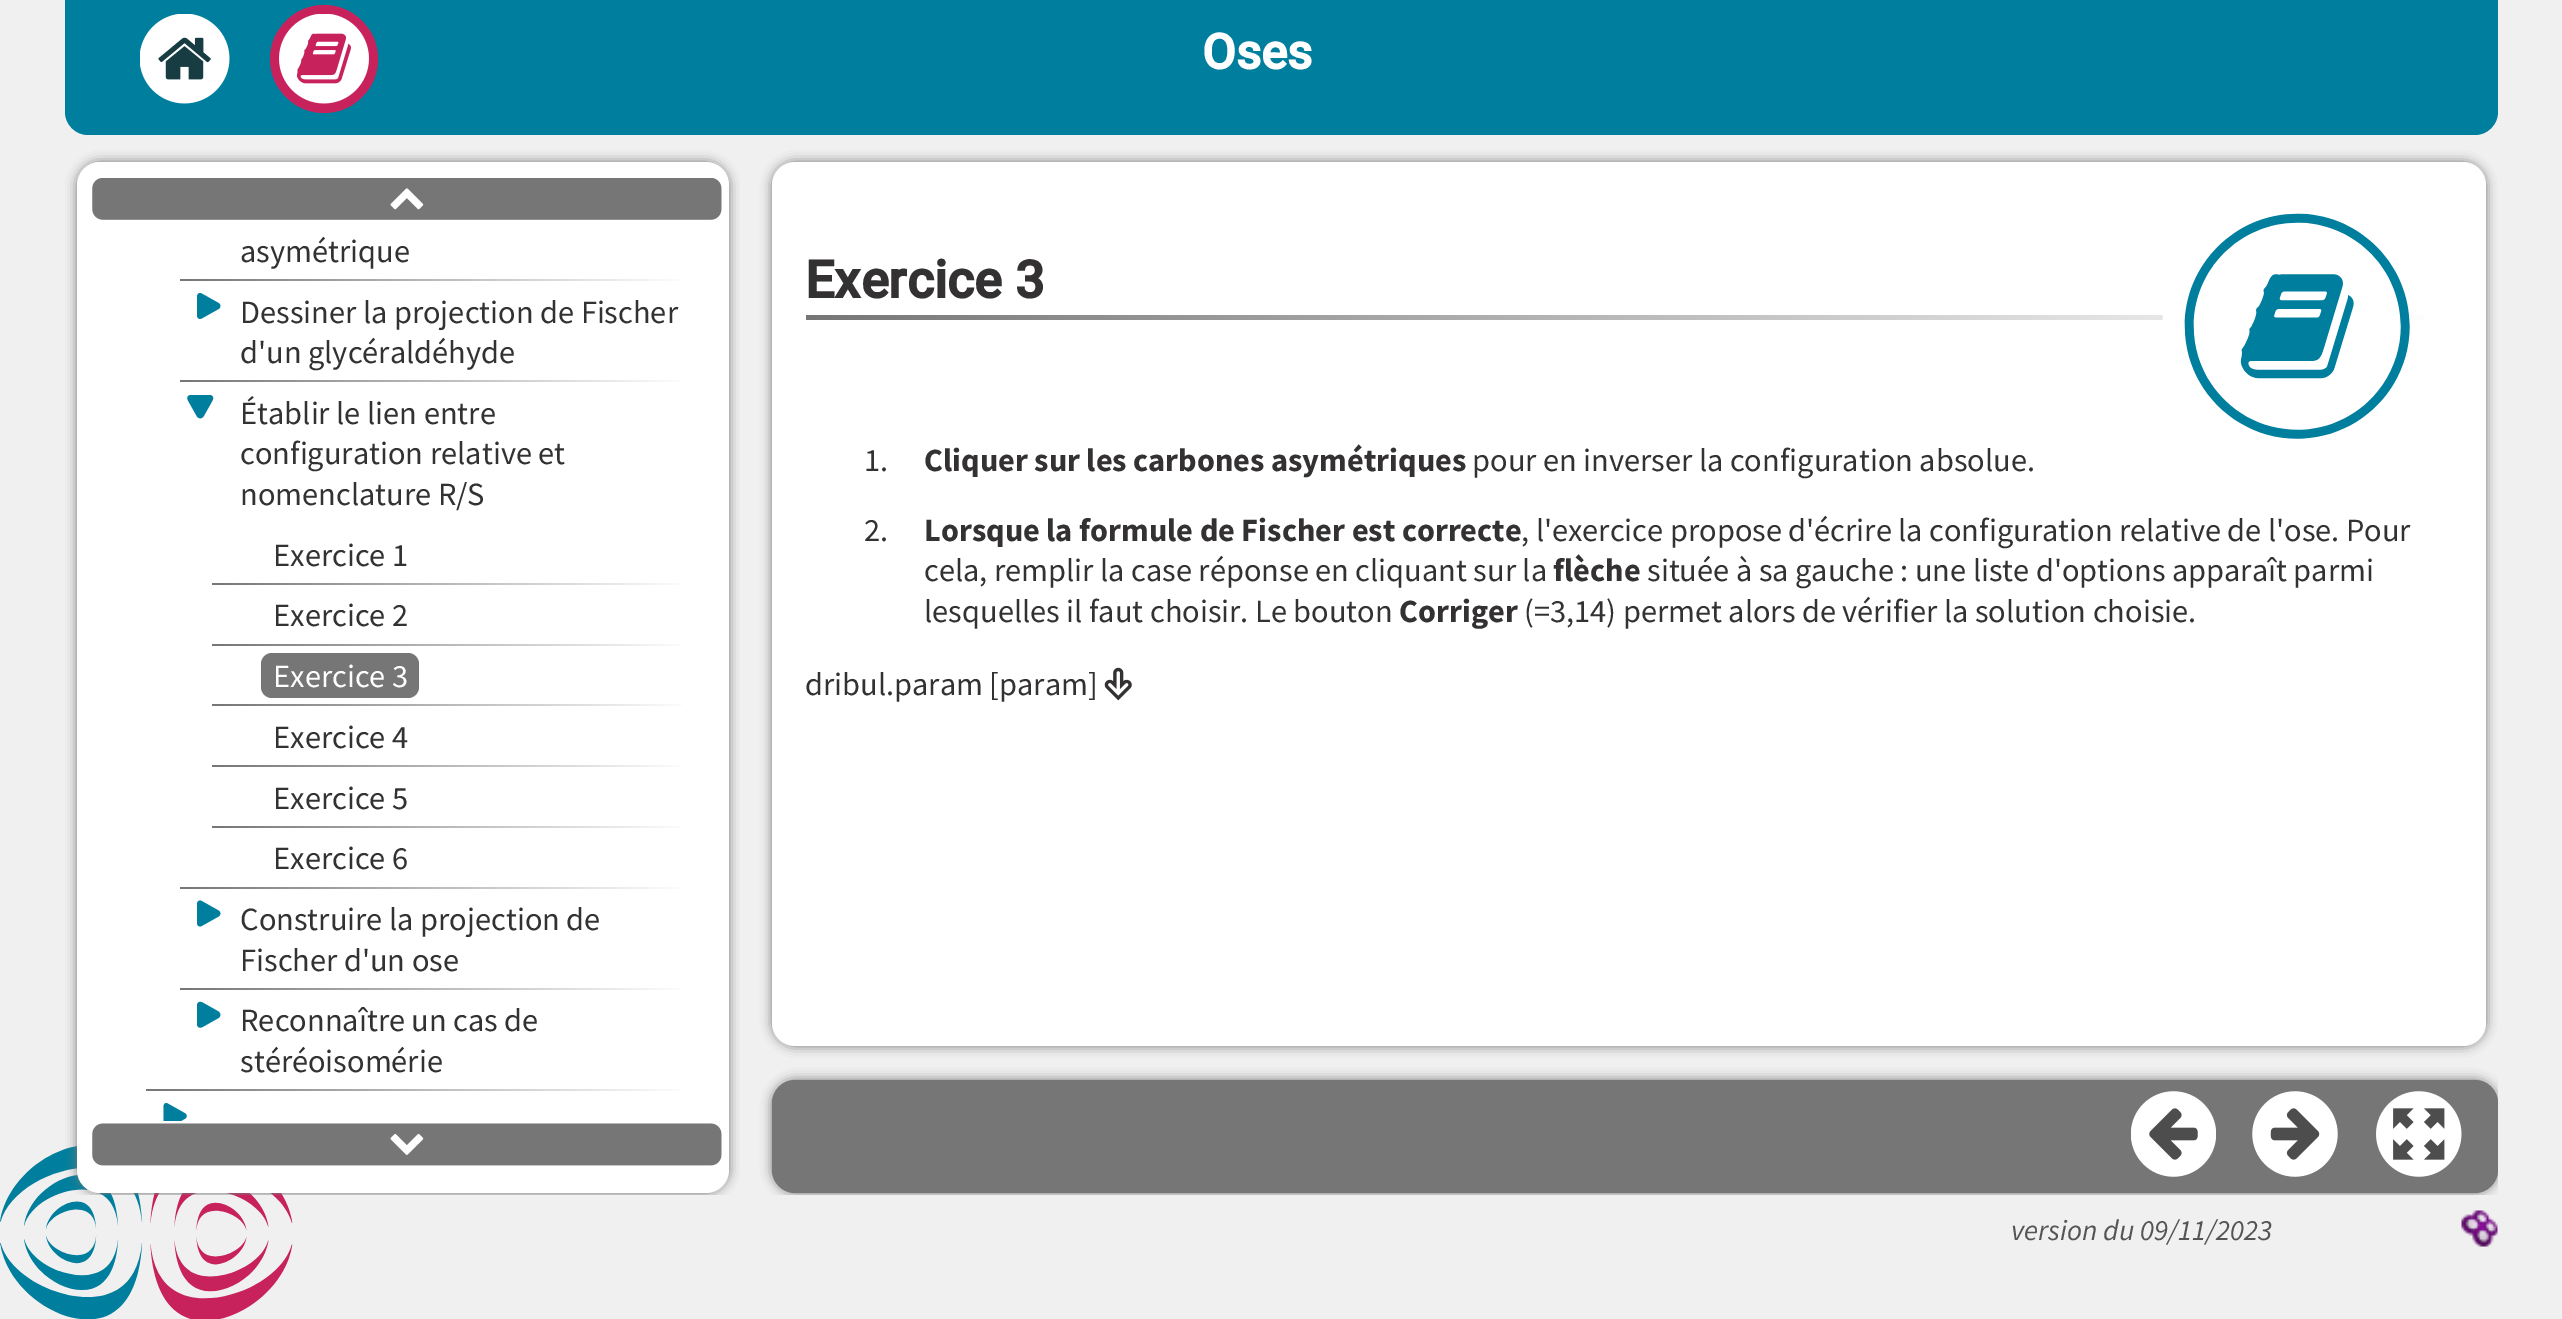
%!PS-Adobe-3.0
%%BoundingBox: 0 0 2562 1319
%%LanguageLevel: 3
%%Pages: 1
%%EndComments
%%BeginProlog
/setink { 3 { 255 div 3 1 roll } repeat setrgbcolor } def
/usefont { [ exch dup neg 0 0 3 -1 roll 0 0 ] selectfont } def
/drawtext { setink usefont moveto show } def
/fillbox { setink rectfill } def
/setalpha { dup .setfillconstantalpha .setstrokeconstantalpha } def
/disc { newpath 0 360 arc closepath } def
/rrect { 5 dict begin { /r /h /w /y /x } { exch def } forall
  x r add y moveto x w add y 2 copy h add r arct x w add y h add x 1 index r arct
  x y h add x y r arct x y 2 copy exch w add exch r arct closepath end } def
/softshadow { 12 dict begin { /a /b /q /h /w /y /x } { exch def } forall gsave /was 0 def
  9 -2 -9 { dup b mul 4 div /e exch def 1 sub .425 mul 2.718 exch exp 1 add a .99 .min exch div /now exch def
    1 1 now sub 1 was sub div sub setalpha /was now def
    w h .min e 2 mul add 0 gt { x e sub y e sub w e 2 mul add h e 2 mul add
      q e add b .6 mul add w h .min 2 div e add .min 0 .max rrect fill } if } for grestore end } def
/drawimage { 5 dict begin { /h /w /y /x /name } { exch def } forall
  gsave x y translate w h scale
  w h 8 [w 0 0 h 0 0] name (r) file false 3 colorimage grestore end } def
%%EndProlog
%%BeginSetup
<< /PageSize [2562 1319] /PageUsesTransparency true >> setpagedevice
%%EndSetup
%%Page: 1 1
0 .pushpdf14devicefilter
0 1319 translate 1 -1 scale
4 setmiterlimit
0 0 2562 1319 240 240 240 fillbox
(assets/img1.rgb) 0 1146 293 173 drawimage
0 126 158 setink
65 0 moveto 2498 0 lineto 2498 112 lineto 2498 124.5 2487.5 135 2475 135 curveto 88 135 lineto 75.5 135 65 124.5 65 112 curveto closepath fill
(Oses) 1202 69 /Roboto-Bold 49 255 255 255 drawtext
(assets/img2.rgb) 140 14 90 90 drawimage
200 34 93 setink
324 59 54 disc fill
(assets/img3.rgb) 279 14 90 90 drawimage
gsave
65 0 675 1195 rectclip
118 118 118 setink
77 162 652 1031 23 5.5 1 softshadow
grestore
255 255 255 setink
77 162 652 1031 23 rrect fill
(assets/img4.rgb) 92 178 630 42 drawimage
gsave 146 1089 moveto 681 1089 lineto 681 1091 lineto 146 1091 lineto closepath clip newpath
<< /ShadingType 2 /ColorSpace /DeviceRGB /Coords [146 1090 691 1090] /Extend [true true] /Function << /FunctionType 2 /Domain [0 1] /C0 [0.463 0.463 0.463] /C1 [1 1 1] /N 1 >> >> shfill grestore
gsave 180 279 moveto 682 279 lineto 682 281 lineto 180 281 lineto closepath clip newpath
<< /ShadingType 2 /ColorSpace /DeviceRGB /Coords [180 280 691 280] /Extend [true true] /Function << /FunctionType 2 /Domain [0 1] /C0 [0.463 0.463 0.463] /C1 [1 1 1] /N 1 >> >> shfill grestore
(asymétrique) 240 262 /SourceSansPro-Regular 32.4 51 49 50 drawtext
gsave 180 380 moveto 682 380 lineto 682 382 lineto 180 382 lineto closepath clip newpath
<< /ShadingType 2 /ColorSpace /DeviceRGB /Coords [180 381 691 381] /Extend [true true] /Function << /FunctionType 2 /Domain [0 1] /C0 [0.463 0.463 0.463] /C1 [1 1 1] /N 1 >> >> shfill grestore
0 126 158 setink
197 297 moveto 197 293.5 199.5 292 202.5 294 curveto 218.5 303 lineto 221 304.5 221 307.5 218.5 309 curveto 202.5 318 lineto 199.5 320 197 318.5 197 315 curveto closepath fill
(Dessiner la projection de Fischer) 240 323 /SourceSansPro-Regular 32.4 51 49 50 drawtext
(d'un glycéraldéhyde) 240 363 /SourceSansPro-Regular 32.4 51 49 50 drawtext
gsave 180 887 moveto 682 887 lineto 682 889 lineto 180 889 lineto closepath clip newpath
<< /ShadingType 2 /ColorSpace /DeviceRGB /Coords [180 888 691 888] /Extend [true true] /Function << /FunctionType 2 /Domain [0 1] /C0 [0.463 0.463 0.463] /C1 [1 1 1] /N 1 >> >> shfill grestore
0 126 158 setink
209.5 395 moveto 213 395 214 397.5 212.5 400.5 curveto 203.5 416.5 lineto 201.5 419 199 419 197 416.5 curveto 188 400.5 lineto 186.5 397.5 187.5 395 191 395 curveto closepath fill
(Établir le lien entre) 240 424 /SourceSansPro-Regular 32.4 51 49 50 drawtext
(configuration relative et) 240 464 /SourceSansPro-Regular 32.4 51 49 50 drawtext
(nomenclature R/S) 240 505 /SourceSansPro-Regular 32.4 51 49 50 drawtext
gsave 212 583 moveto 682 583 lineto 682 585 lineto 212 585 lineto closepath clip newpath
<< /ShadingType 2 /ColorSpace /DeviceRGB /Coords [212 584 691 584] /Extend [true true] /Function << /FunctionType 2 /Domain [0 1] /C0 [0.463 0.463 0.463] /C1 [1 1 1] /N 1 >> >> shfill grestore
(Exercice 1) 273 566 /SourceSansPro-Regular 32.4 51 49 50 drawtext
gsave 212 644 moveto 682 644 lineto 682 646 lineto 212 646 lineto closepath clip newpath
<< /ShadingType 2 /ColorSpace /DeviceRGB /Coords [212 645 691 645] /Extend [true true] /Function << /FunctionType 2 /Domain [0 1] /C0 [0.463 0.463 0.463] /C1 [1 1 1] /N 1 >> >> shfill grestore
(Exercice 2) 273 626 /SourceSansPro-Regular 32.4 51 49 50 drawtext
gsave 212 704 moveto 682 704 lineto 682 706 lineto 212 706 lineto closepath clip newpath
<< /ShadingType 2 /ColorSpace /DeviceRGB /Coords [212 705 691 705] /Extend [true true] /Function << /FunctionType 2 /Domain [0 1] /C0 [0.463 0.463 0.463] /C1 [1 1 1] /N 1 >> >> shfill grestore
118 118 118 setink
261 653 158 45 11 rrect fill
(Exercice 3) 273 687 /SourceSansPro-Regular 32.4 255 255 255 drawtext
gsave 212 765 moveto 682 765 lineto 682 767 lineto 212 767 lineto closepath clip newpath
<< /ShadingType 2 /ColorSpace /DeviceRGB /Coords [212 766 691 766] /Extend [true true] /Function << /FunctionType 2 /Domain [0 1] /C0 [0.463 0.463 0.463] /C1 [1 1 1] /N 1 >> >> shfill grestore
(Exercice 4) 273 748 /SourceSansPro-Regular 32.4 51 49 50 drawtext
gsave 212 826 moveto 682 826 lineto 682 828 lineto 212 828 lineto closepath clip newpath
<< /ShadingType 2 /ColorSpace /DeviceRGB /Coords [212 827 691 827] /Extend [true true] /Function << /FunctionType 2 /Domain [0 1] /C0 [0.463 0.463 0.463] /C1 [1 1 1] /N 1 >> >> shfill grestore
(Exercice 5) 273 809 /SourceSansPro-Regular 32.4 51 49 50 drawtext
(Exercice 6) 273 869 /SourceSansPro-Regular 32.4 51 49 50 drawtext
gsave 180 988 moveto 682 988 lineto 682 990 lineto 180 990 lineto closepath clip newpath
<< /ShadingType 2 /ColorSpace /DeviceRGB /Coords [180 989 691 989] /Extend [true true] /Function << /FunctionType 2 /Domain [0 1] /C0 [0.463 0.463 0.463] /C1 [1 1 1] /N 1 >> >> shfill grestore
0 126 158 setink
197 904.5 moveto 197 901 199.5 899.5 202.5 901.5 curveto 218.5 910.5 lineto 221 912 221 915 218.5 916.5 curveto 202.5 925.5 lineto 199.5 927.5 197 926 197 922.5 curveto closepath fill
(Construire la projection de) 240 930 /SourceSansPro-Regular 32.4 51 49 50 drawtext
(Fischer d'un ose) 240 971 /SourceSansPro-Regular 32.4 51 49 50 drawtext
0 126 158 setink
197 1005.5 moveto 197 1002 199.5 1001 202.5 1002.5 curveto 218.5 1011.5 lineto 221 1013.5 221 1016 218.5 1018 curveto 202.5 1027 lineto 199.5 1028.5 197 1027.5 197 1024 curveto closepath fill
(Reconnaître un cas de) 240 1031 /SourceSansPro-Regular 32.4 51 49 50 drawtext
(stéréoisomérie) 240 1072 /SourceSansPro-Regular 32.4 51 49 50 drawtext
gsave
146 1096 41 25 rectclip
0 126 158 setink
163.5 1107 moveto 163.5 1103.5 166 1102 168.5 1104 curveto 184.5 1113 lineto 187.5 1114.5 187.5 1117.5 184.5 1119 curveto 168.5 1128 lineto 166 1130 163.5 1128.5 163.5 1125 curveto closepath fill
grestore
(assets/img5.rgb) 92 1123 630 43 drawimage
118 118 118 setink
772 162 1714 884 23 5.5 1 softshadow
255 255 255 setink
772 162 1714 884 23 rrect fill
gsave 806 315 moveto 2425 315 lineto 2425 320 lineto 806 320 lineto closepath clip newpath
<< /ShadingType 2 /ColorSpace /DeviceRGB /Coords [806 317 2455 317] /Extend [true true] /Function << /FunctionType 2 /Domain [0 1] /C0 [0.463 0.463 0.463] /C1 [1 1 1] /N 1 >> >> shfill grestore
(Exercice 3) 805 298 /Roboto-Bold 52 51 49 50 drawtext
(assets/img6.rgb) 2162 213 248 226 drawimage
(1.) 864 471 /SourceSansPro-Regular 32.4 51 49 50 drawtext
(Cliquer sur les carbones asymétriques) 924 471 /SourceSansPro-Bold 32.4 51 49 50 drawtext
(pour en inverser la configuration absolue.) 1472 471 /SourceSansPro-Regular 32.4 51 49 50 drawtext
(2.) 864 541 /SourceSansPro-Regular 32.4 51 49 50 drawtext
(Lorsque la formule de Fischer est correcte) 924 541 /SourceSansPro-Bold 32.4 51 49 50 drawtext
(, l'exercice propose d'écrire la configuration relative de l'ose. Pour) 1521 541 /SourceSansPro-Regular 32.4 51 49 50 drawtext
(cela, remplir la case réponse en cliquant sur la) 924 581 /SourceSansPro-Regular 32.4 51 49 50 drawtext
(flèche) 1553 581 /SourceSansPro-Bold 32.4 51 49 50 drawtext
(située à sa gauche : une liste d'options apparaît parmi) 1647 581 /SourceSansPro-Regular 32.4 51 49 50 drawtext
(lesquelles il faut choisir. Le bouton) 924 622 /SourceSansPro-Regular 32.4 51 49 50 drawtext
(Corriger) 1399 622 /SourceSansPro-Bold 32.4 51 49 50 drawtext
(\(=3,14\) permet alors de vérifier la solution choisie.) 1524 622 /SourceSansPro-Regular 32.4 51 49 50 drawtext
(dribul.param [param]) 805 695 /SourceSansPro-Regular 32.4 51 49 50 drawtext
(assets/img7.rgb) 1104 667 28 34 drawimage
(assets/img11.rgb) 2461 1210 37 37 drawimage
gsave
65 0 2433 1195 rectclip
118 118 118 setink
772 1080 1726 113 23 5.5 1 softshadow
grestore
118 118 118 setink
772 1080 1726 113 23 rrect fill
(assets/img8.rgb) 2131 1091 85 86 drawimage
(assets/img9.rgb) 2252 1091 86 86 drawimage
(assets/img10.rgb) 2376 1091 86 86 drawimage
(version du 09/11/2023) 2011 1240 /SourceSansPro-Italic 29.25 85 85 85 drawtext
.poppdf14devicefilter showpage
%%EOF
